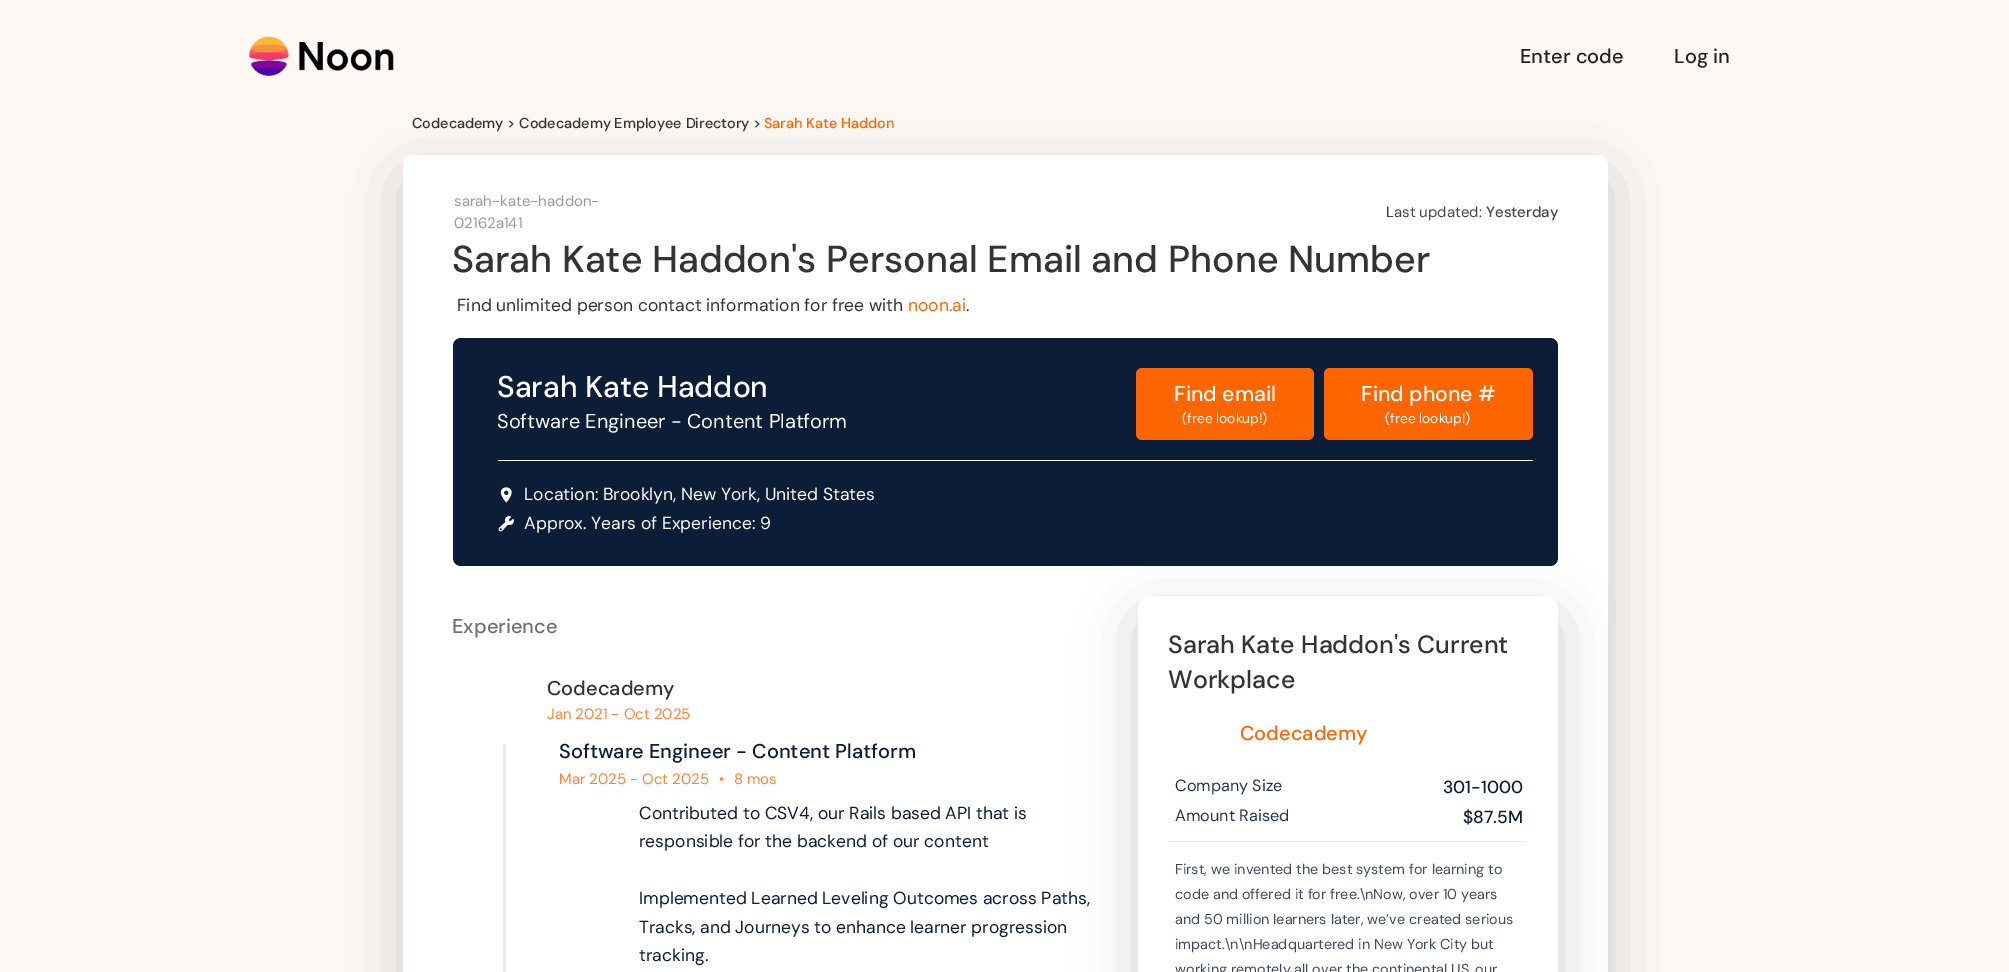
%!PS-Adobe-3.0
%%BoundingBox: 0 0 2009 972
%%LanguageLevel: 3
%%Pages: 1
%%EndComments
%%BeginProlog
/setink { 3 { 255 div 3 1 roll } repeat setrgbcolor } def
/usefont { [ exch dup neg 0 0 3 -1 roll 0 0 ] selectfont } def
/drawtext { setink usefont moveto show } def
/fillbox { setink rectfill } def
/setalpha { dup .setfillconstantalpha .setstrokeconstantalpha } def
/rrect { 5 dict begin { /r /h /w /y /x } { exch def } forall
  x r add y moveto x w add y 2 copy h add r arct x w add y h add x 1 index r arct
  x y h add x y r arct x y 2 copy exch w add exch r arct closepath end } def
/softshadow { 12 dict begin { /a /b /q /h /w /y /x } { exch def } forall gsave /was 0 def
  9 -2 -9 { dup b mul 4 div /e exch def 1 sub .425 mul 2.718 exch exp 1 add a .99 .min exch div /now exch def
    1 1 now sub 1 was sub div sub setalpha /was now def
    w h .min e 2 mul add 0 gt { x e sub y e sub w e 2 mul add h e 2 mul add
      q e add b .6 mul add w h .min 2 div e add .min 0 .max rrect fill } if } for grestore end } def
/drawimage { 5 dict begin { /h /w /y /x /name } { exch def } forall
  gsave x y translate w h scale
  w h 8 [w 0 0 h 0 0] name (r) file false 3 colorimage grestore end } def
%%EndProlog
%%BeginSetup
<< /PageSize [2009 972] /PageUsesTransparency true >> setpagedevice
%%EndSetup
%%Page: 1 1
0 .pushpdf14devicefilter
0 972 translate 1 -1 scale
4 setmiterlimit
0 0 2009 972 253 248 243 fillbox
(assets/img1.rgb) 249 36 145 40 drawimage
(Enter code) 1520 63 /DMSans-Medium 20 34 34 34 drawtext
(Log in) 1674 63 /DMSans-Medium 20 34 34 34 drawtext
(Codecademy > Codecademy Employee Directory >) 412 128 /DMSans-Medium 14.4 51 51 51 drawtext
(Sarah Kate Haddon) 764 128 /DMSans-Medium 14.4 255 101 0 drawtext
0 0 0 setink
403 175 1205 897 10 30 0.18 softshadow
255 255 255 setink
403 155 1205 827 10 rrect fill
(sarah-kate-haddon-) 454 206 /DMSans-Regular 15 153 153 153 drawtext
(02162a141) 454 228 /DMSans-Regular 15 153 153 153 drawtext
(Last updated:) 1386 217 /DMSans-Regular 15 71 71 71 drawtext
(Yesterday) 1486 217 /DMSans-Medium 15 71 71 71 drawtext
(Sarah Kate Haddon's Personal Email and Phone Number) 452 272 /DMSans-Medium 37.5 51 51 51 drawtext
(Find unlimited person contact information for free with) 457 311 /DMSans-Regular 17.5 51 51 51 drawtext
(noon.ai) 908 311 /DMSans-Regular 17.5 255 101 0 drawtext
(.) 966 311 /DMSans-Regular 17.5 51 51 51 drawtext
12 29 55 setink
453 338 1105 228 8 rrect fill
(Sarah Kate Haddon) 497 397 /DMSans-Medium 30 255 255 255 drawtext
(Software Engineer - Content Platform) 497 428 /DMSans-Regular 20 255 255 255 drawtext
255 101 0 setink
1136 368 178 72 6 rrect fill
(Find email) 1174 401 /DMSans-Medium 21.25 255 255 255 drawtext
(\(free lookup!\)) 1182 423 /DMSans-Regular 13.75 255 255 255 drawtext
255 101 0 setink
1324 368 209 72 6 rrect fill
(Find phone #) 1361 401 /DMSans-Medium 21.25 255 255 255 drawtext
(\(free lookup!\)) 1385 423 /DMSans-Regular 13.75 255 255 255 drawtext
498 460 1035 1 0.5 rrect fill
(assets/img2.rgb) 500 487 12 16 drawimage
(Location: Brooklyn, New York, United States) 524 500 /DMSans-Regular 17.5 255 255 255 drawtext
(assets/img3.rgb) 498 516 16 16 drawimage
(Approx. Years of Experience: 9) 524 529 /DMSans-Regular 17.5 255 255 255 drawtext
(Experience) 452 633 /DMSans-Medium 20 112 112 112 drawtext
(Codecademy) 547 695 /DMSans-Medium 20 51 51 51 drawtext
(Jan 2021 - Oct 2025) 547 719 /DMSans-Regular 15 255 132 51 drawtext
503 744 3 228 234 235 238 fillbox
(Software Engineer - Content Platform) 559 758 /DMSans-Medium 20 12 29 55 drawtext
(Mar 2025 - Oct 2025) 559 784 /DMSans-Regular 15 255 132 51 drawtext
(•) 719 784 /DMSans-Regular 15 255 132 51 drawtext
(8 mos) 734 784 /DMSans-Regular 15 255 132 51 drawtext
(Contributed to CSV4, our Rails based API that is) 639 819 /DMSans-Regular 17.5 12 29 55 drawtext
(responsible for the backend of our content) 639 847 /DMSans-Regular 17.5 12 29 55 drawtext
gsave
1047 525 moveto 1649 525 lineto 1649 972 lineto 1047 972 lineto closepath 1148 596 moveto 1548 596 lineto 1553.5 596 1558 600.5 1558 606 curveto 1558 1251 lineto 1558 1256.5 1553.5 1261 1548 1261 curveto 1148 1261 lineto 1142.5 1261 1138 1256.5 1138 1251 curveto 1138 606 lineto 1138 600.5 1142.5 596 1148 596 curveto closepath eoclip newpath
0 0 0 setink
1138 616 420 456 10 30 0.18 softshadow
grestore
(Implemented Learned Leveling Outcomes across Paths,) 639 904 /DMSans-Regular 17.5 12 29 55 drawtext
(Tracks, and Journeys to enhance learner progression) 639 933 /DMSans-Regular 17.5 12 29 55 drawtext
(tracking.) 639 961 /DMSans-Regular 17.5 12 29 55 drawtext
(Sarah Kate Haddon's Current) 1168 653 /DMSans-Medium 25 51 51 51 drawtext
(Workplace) 1168 688 /DMSans-Medium 25 51 51 51 drawtext
(Codecademy) 1240 740 /DMSans-Medium 20 255 101 0 drawtext
(Company Size) 1175 791 /DMSans-Regular 16.25 36 52 75 drawtext
(301-1000) 1443 793 /DMSans-Medium 17.5 12 29 55 drawtext
(Amount Raised) 1175 821 /DMSans-Regular 16.25 36 52 75 drawtext
($87.5M) 1463 823 /DMSans-Medium 17.5 12 29 55 drawtext
1168 841 355 1 229 231 235 fillbox
(First, we invented the best system for learning to) 1175 874 /DMSans-Regular 14.4 61 74 95 drawtext
(code and offered it for free.\\nNow, over 10 years) 1175 899 /DMSans-Regular 14.4 61 74 95 drawtext
(and 50 million learners later, we’ve created serious) 1175 924 /DMSans-Regular 14.4 61 74 95 drawtext
(impact.\\n\\nHeadquartered in New York City but) 1175 949 /DMSans-Regular 14.4 61 74 95 drawtext
(working remotely all over the continental US, our) 1175 974 /DMSans-Regular 14.4 61 74 95 drawtext
.poppdf14devicefilter showpage
%%EOF
